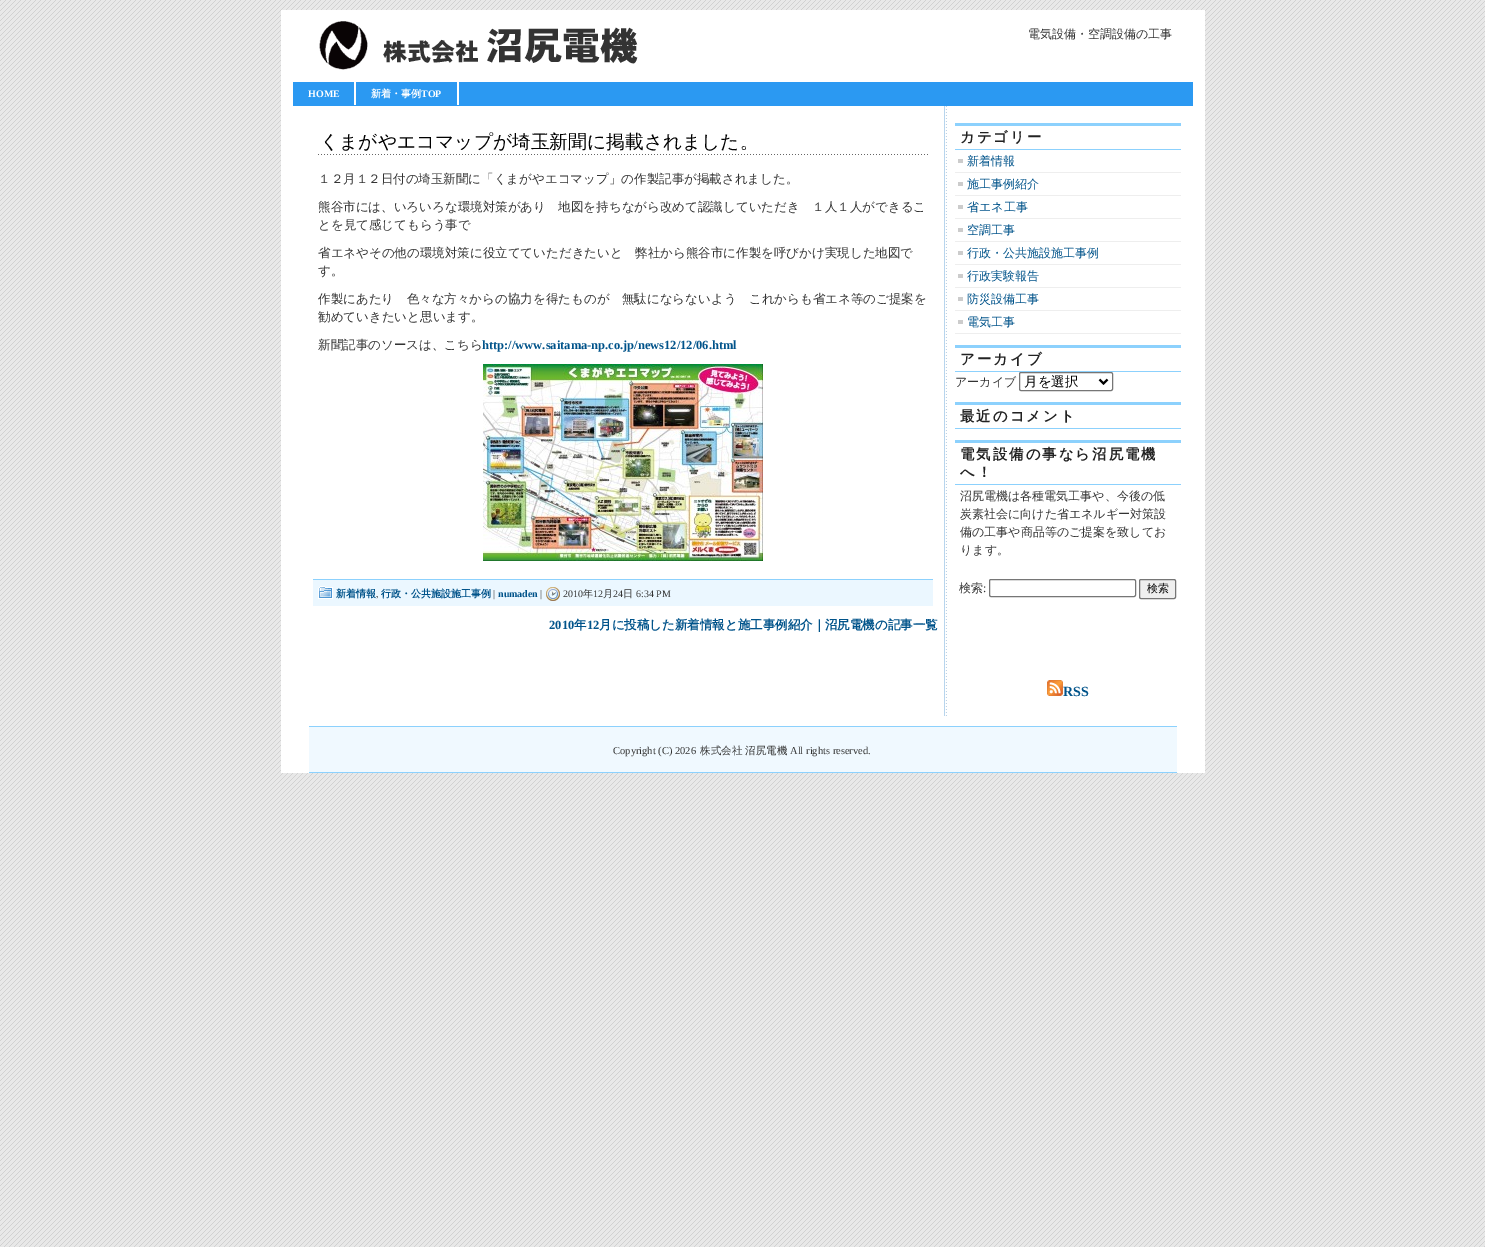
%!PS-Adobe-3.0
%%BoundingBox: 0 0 1485 1247
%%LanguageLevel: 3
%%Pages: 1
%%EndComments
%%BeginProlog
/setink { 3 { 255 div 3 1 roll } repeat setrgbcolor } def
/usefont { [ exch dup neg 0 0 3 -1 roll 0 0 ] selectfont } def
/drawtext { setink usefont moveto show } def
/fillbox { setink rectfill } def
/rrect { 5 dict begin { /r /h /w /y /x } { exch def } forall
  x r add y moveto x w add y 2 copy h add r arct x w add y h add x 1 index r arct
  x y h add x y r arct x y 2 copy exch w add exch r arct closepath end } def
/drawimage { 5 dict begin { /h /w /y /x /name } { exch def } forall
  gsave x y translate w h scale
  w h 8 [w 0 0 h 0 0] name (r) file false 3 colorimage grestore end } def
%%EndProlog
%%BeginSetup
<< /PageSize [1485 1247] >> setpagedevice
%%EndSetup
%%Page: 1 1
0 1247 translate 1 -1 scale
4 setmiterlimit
0 0 1485 1247 255 255 255 fillbox
(assets/img1.rgb) 0 0 1485 1247 drawimage
281 10 924 763 255 255 255 fillbox
(assets/img2.rgb) 944 106 3 610 drawimage
(assets/img3.rgb) 319 21 319 49 drawimage
(電気設備・空調設備の工事) 1028 38 /WenQuanYiZenHei-Medium 12 51 51 51 drawtext
293 82 900 24 43 153 242 fillbox
(HOME) 308 97 /LiberationSerif-Bold 10 255 255 255 drawtext
354 82 2 23 255 255 255 fillbox
(新着・事例) 371 97 /WenQuanYiZenHei-Bold 10 255 255 255 drawtext
(TOP) 421 97 /LiberationSerif-Bold 10 255 255 255 drawtext
457 82 2 23 255 255 255 fillbox
(assets/img4.rgb) 318 154 610 1 drawimage
(くまがやエコマップが埼玉新聞に掲載されました。) 320 148 /WenQuanYiZenHei-Medium 18.75 0 0 0 drawtext
(１２月１２日付の埼玉新聞に「くまがやエコマップ」の作製記事が掲載されました。) 318 183 /WenQuanYiZenHei-Medium 12.5 51 51 51 drawtext
(熊谷市には、いろいろな環境対策があり　地図を持ちながら改めて認識していただき　１人１人ができるこ) 318 211 /WenQuanYiZenHei-Medium 12.5 51 51 51 drawtext
(とを見て感じてもらう事で) 318 229 /WenQuanYiZenHei-Medium 12.5 51 51 51 drawtext
(省エネやその他の環境対策に役立てていただきたいと　弊社から熊谷市に作製を呼びかけ実現した地図で) 318 257 /WenQuanYiZenHei-Medium 12.5 51 51 51 drawtext
(す。) 318 275 /WenQuanYiZenHei-Medium 12.5 51 51 51 drawtext
(作製にあたり　色々な方々からの協力を得たものが　無駄にならないよう　これからも省エネ等のご提案を) 318 303 /WenQuanYiZenHei-Medium 12.5 51 51 51 drawtext
(勧めていきたいと思います。) 318 321 /WenQuanYiZenHei-Medium 12.5 51 51 51 drawtext
(新聞記事のソースは、こちら) 318 349 /WenQuanYiZenHei-Medium 12.5 51 51 51 drawtext
(http://www.saitama-np.co.jp/news12/12/06.html) 482 349 /LiberationSerif-Bold 12.5 0 83 138 drawtext
(assets/img5.rgb) 483 364 280 197 drawimage
313 580 620 26 235 247 255 fillbox
313 579 620 1 140 209 253 fillbox
(assets/img6.rgb) 318 586 15 13 drawimage
(新着情報) 336 597 /WenQuanYiZenHei-Bold 10 0 83 138 drawtext
(,) 376 597 /LiberationSerif-Regular 10 51 51 51 drawtext
(行政・公共施設施工事例) 381 597 /WenQuanYiZenHei-Bold 10 0 83 138 drawtext
(|) 493 597 /LiberationSerif-Regular 10 51 51 51 drawtext
(numaden) 498 597 /LiberationSerif-Bold 10 0 83 138 drawtext
(|) 540 597 /LiberationSerif-Regular 10 51 51 51 drawtext
(assets/img7.rgb) 546 587 14 14 drawimage
(2010) 563 597 /LiberationSerif-Regular 10 51 51 51 drawtext
(年) 583 597 /WenQuanYiZenHei-Medium 10 51 51 51 drawtext
(12) 593 597 /LiberationSerif-Regular 10 51 51 51 drawtext
(月) 603 597 /WenQuanYiZenHei-Medium 10 51 51 51 drawtext
(24) 613 597 /LiberationSerif-Regular 10 51 51 51 drawtext
(日) 623 597 /WenQuanYiZenHei-Medium 10 51 51 51 drawtext
(6:34 PM) 636 597 /LiberationSerif-Regular 10 51 51 51 drawtext
(2010) 549 629 /LiberationSerif-Bold 12.5 0 83 138 drawtext
(年) 574 629 /WenQuanYiZenHei-Bold 12.5 0 83 138 drawtext
(12) 587 629 /LiberationSerif-Bold 12.5 0 83 138 drawtext
(月に投稿した新着情報と施工事例紹介｜沼尻電機の記事一覧) 599 629 /WenQuanYiZenHei-Bold 12.5 0 83 138 drawtext
955 123 226 3 140 209 253 fillbox
955 149 226 1 140 209 253 fillbox
/WenQuanYiZenHei-Bold 14.4 usefont
34 34 34 setink
960 142 moveto 2 0 (カテゴリー) ashow
958 159 5 4 204 204 204 fillbox
955 172 226 1 238 238 238 fillbox
(新着情報) 967 165 /WenQuanYiZenHei-Medium 12 0 83 138 drawtext
958 182 5 4 204 204 204 fillbox
955 195 226 1 238 238 238 fillbox
(施工事例紹介) 967 188 /WenQuanYiZenHei-Medium 12 0 83 138 drawtext
958 205 5 4 204 204 204 fillbox
955 218 226 1 238 238 238 fillbox
(省エネ工事) 967 211 /WenQuanYiZenHei-Medium 12 0 83 138 drawtext
958 228 5 4 204 204 204 fillbox
955 241 226 1 238 238 238 fillbox
(空調工事) 967 234 /WenQuanYiZenHei-Medium 12 0 83 138 drawtext
958 251 5 4 204 204 204 fillbox
955 264 226 1 238 238 238 fillbox
(行政・公共施設施工事例) 967 257 /WenQuanYiZenHei-Medium 12 0 83 138 drawtext
958 274 5 4 204 204 204 fillbox
955 287 226 1 238 238 238 fillbox
(行政実験報告) 967 280 /WenQuanYiZenHei-Medium 12 0 83 138 drawtext
958 297 5 4 204 204 204 fillbox
955 310 226 1 238 238 238 fillbox
(防災設備工事) 967 303 /WenQuanYiZenHei-Medium 12 0 83 138 drawtext
958 320 5 4 204 204 204 fillbox
955 333 226 1 238 238 238 fillbox
(電気工事) 967 326 /WenQuanYiZenHei-Medium 12 0 83 138 drawtext
955 345 226 3 140 209 253 fillbox
955 371 226 1 140 209 253 fillbox
/WenQuanYiZenHei-Bold 14.4 usefont
34 34 34 setink
960 364 moveto 2 0 (アーカイブ) ashow
(アーカイブ) 955 386 /WenQuanYiZenHei-Medium 12 51 51 51 drawtext
118 118 118 setink
1019.5 372.5 93 18 1.5 rrect stroke
0 0 0 setink
2 setlinewidth
1099.5 379.5 moveto 1103.5 383.5 lineto 1107.5 379.5 lineto stroke
(月を選択) 1024 386 /WenQuanYiZenHei-Medium 13.5 0 0 0 drawtext
955 402 226 3 140 209 253 fillbox
955 428 226 1 140 209 253 fillbox
/WenQuanYiZenHei-Bold 14.4 usefont
34 34 34 setink
960 421 moveto 2 0 (最近のコメント) ashow
955 440 226 3 140 209 253 fillbox
955 484 226 1 140 209 253 fillbox
34 34 34 setink
960 459 moveto 2 0 (電気設備の事なら沼尻電機) ashow
960 477 moveto 2 0 (へ！) ashow
(沼尻電機は各種電気工事や、今後の低) 960 500 /WenQuanYiZenHei-Medium 12 51 51 51 drawtext
(炭素社会に向けた省エネルギー対策設) 960 518 /WenQuanYiZenHei-Medium 12 51 51 51 drawtext
(備の工事や商品等のご提案を致してお) 960 536 /WenQuanYiZenHei-Medium 12 51 51 51 drawtext
(ります。) 960 554 /WenQuanYiZenHei-Medium 12 51 51 51 drawtext
(検索) 959 592 /WenQuanYiZenHei-Medium 12 51 51 51 drawtext
(:) 983 592 /LiberationSerif-Regular 12 51 51 51 drawtext
118 118 118 setink
1 setlinewidth
989.5 579.5 146 17 1.5 rrect stroke
239 239 239 setink
1139.5 579.5 36 19 1.5 rrect gsave fill grestore
118 118 118 setink
stroke
(検索) 1147 592 /WenQuanYiZenHei-Medium 11 0 0 0 drawtext
(assets/img8.rgb) 1047 680 16 16 drawimage
(RSS) 1063 696 /LiberationSerif-Bold 14 0 83 138 drawtext
309 727 868 45 240 249 255 fillbox
309 726 868 1 140 209 253 fillbox
309 772 868 1 140 209 253 fillbox
(Copyright \(C\) 2026) 613 754 /LiberationSerif-Regular 10.5 51 51 51 drawtext
(株式会社) 700 754 /WenQuanYiZenHei-Medium 10.5 51 51 51 drawtext
(沼尻電機) 745 754 /WenQuanYiZenHei-Medium 10.5 51 51 51 drawtext
(All rights reserved.) 790 754 /LiberationSerif-Regular 10.5 51 51 51 drawtext
showpage
%%EOF
